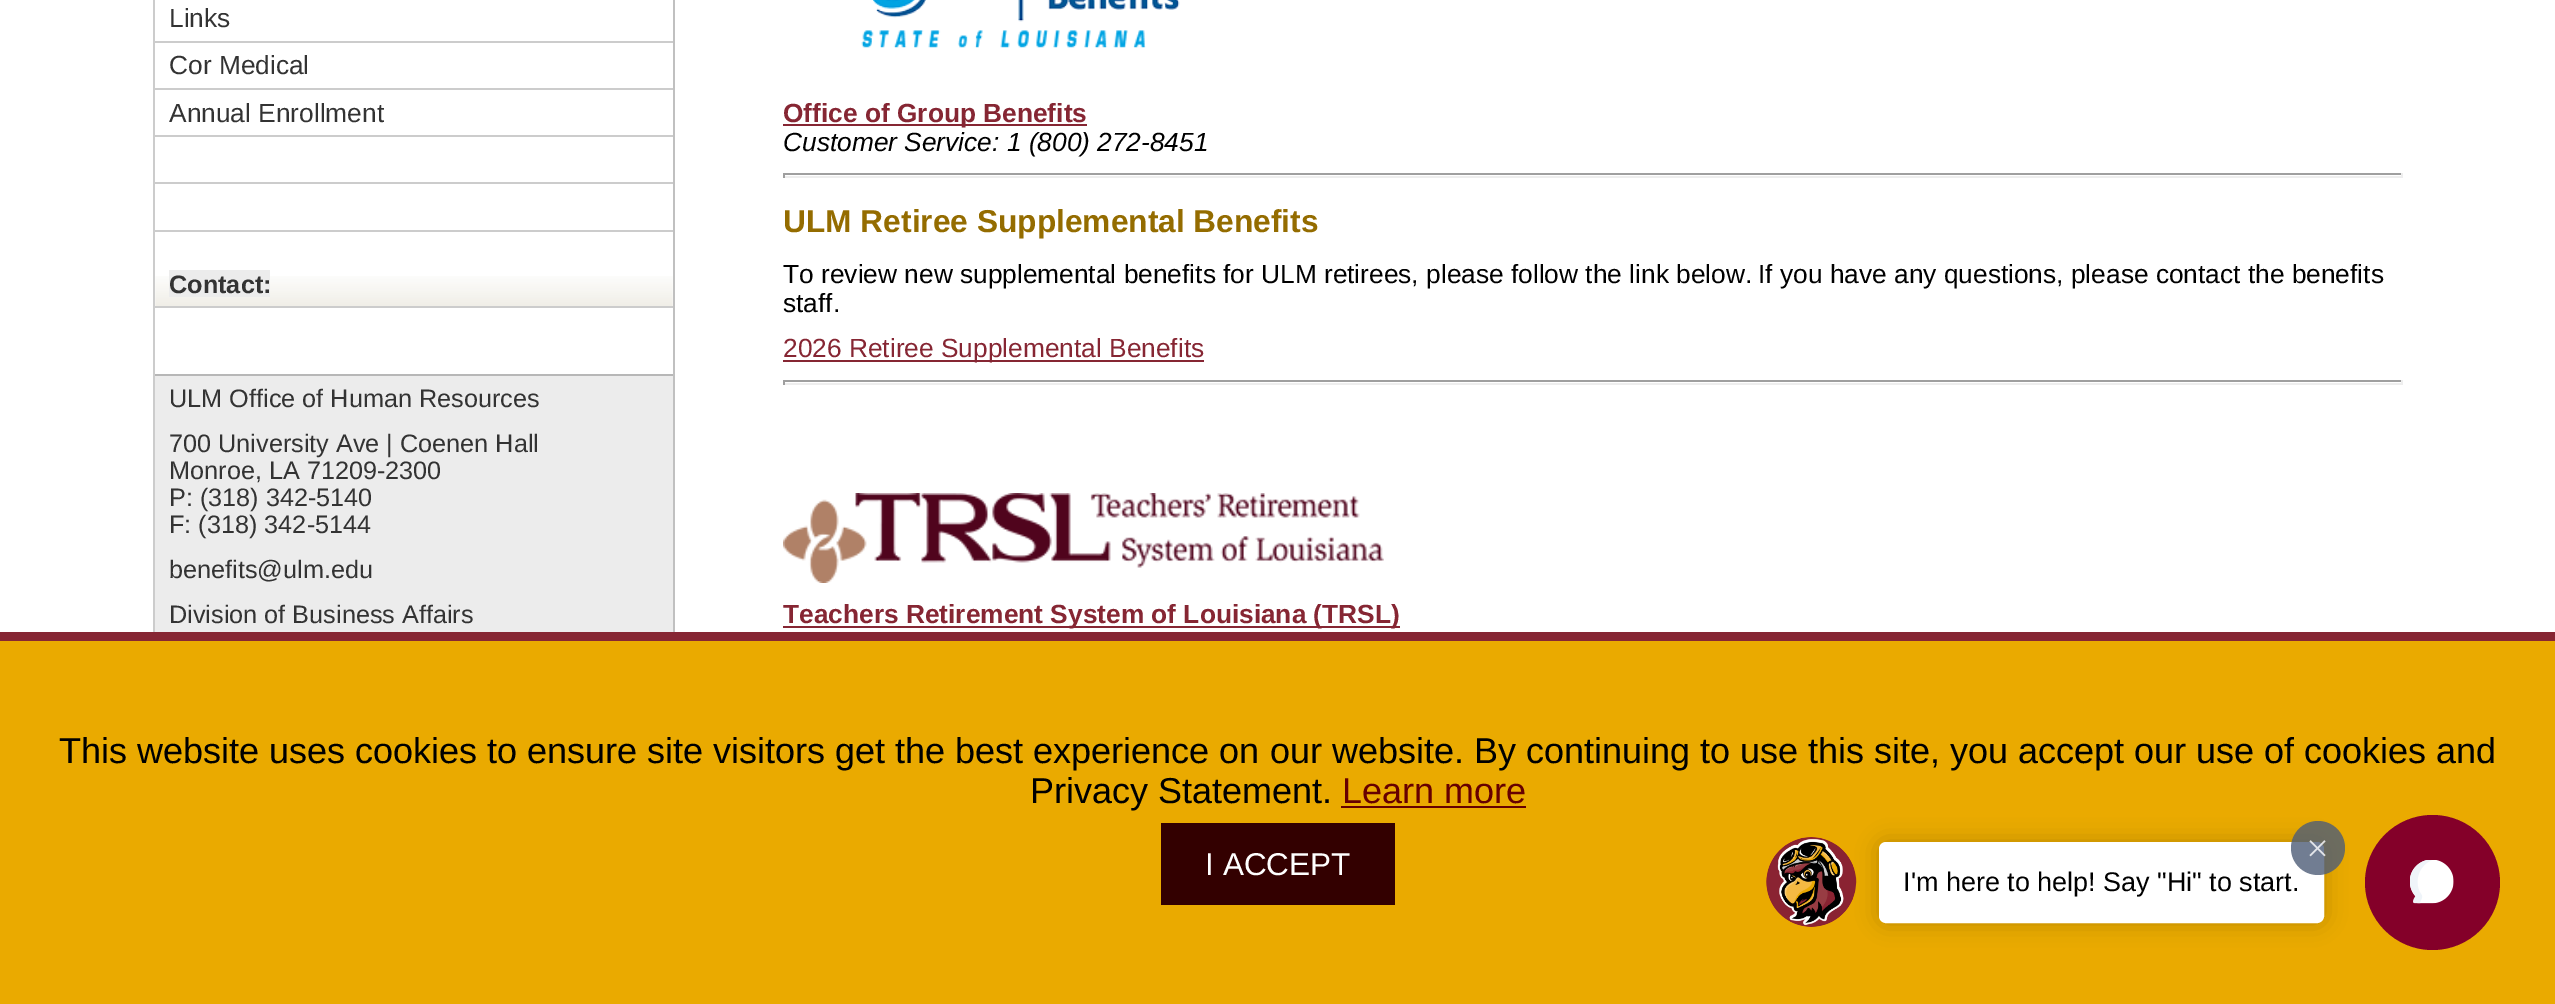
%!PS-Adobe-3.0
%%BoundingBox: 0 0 2555 1004
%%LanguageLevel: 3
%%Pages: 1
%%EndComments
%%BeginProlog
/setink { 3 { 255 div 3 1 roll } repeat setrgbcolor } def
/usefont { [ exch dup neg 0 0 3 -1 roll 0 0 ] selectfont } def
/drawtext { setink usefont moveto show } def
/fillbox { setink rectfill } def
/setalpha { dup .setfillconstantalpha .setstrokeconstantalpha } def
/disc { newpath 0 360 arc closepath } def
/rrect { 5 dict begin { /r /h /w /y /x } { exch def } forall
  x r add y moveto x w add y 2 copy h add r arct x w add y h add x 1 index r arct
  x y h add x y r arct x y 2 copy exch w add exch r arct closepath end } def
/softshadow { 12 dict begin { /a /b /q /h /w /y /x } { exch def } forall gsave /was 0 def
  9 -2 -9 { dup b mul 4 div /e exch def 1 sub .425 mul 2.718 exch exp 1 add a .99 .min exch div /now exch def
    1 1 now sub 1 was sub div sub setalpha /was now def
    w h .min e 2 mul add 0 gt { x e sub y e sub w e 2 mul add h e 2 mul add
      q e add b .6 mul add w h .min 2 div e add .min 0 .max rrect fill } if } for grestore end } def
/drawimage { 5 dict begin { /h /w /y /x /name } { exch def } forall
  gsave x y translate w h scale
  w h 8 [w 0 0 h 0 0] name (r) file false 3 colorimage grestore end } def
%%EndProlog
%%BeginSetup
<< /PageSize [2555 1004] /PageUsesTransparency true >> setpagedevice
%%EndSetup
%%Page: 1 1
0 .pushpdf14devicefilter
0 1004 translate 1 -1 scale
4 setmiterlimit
0 0 2555 1004 255 255 255 fillbox
673 0 2 639 192 192 192 fillbox
153 0 2 639 204 204 204 fillbox
155 41 518 2 204 204 204 fillbox
(Links) 169 27 /LiberationSans-Regular 26.3 51 51 51 drawtext
155 88 518 2 204 204 204 fillbox
(Cor Medical) 169 74 /LiberationSans-Regular 26.3 51 51 51 drawtext
155 135 518 2 204 204 204 fillbox
(Annual Enrollment) 169 122 /LiberationSans-Regular 26.3 51 51 51 drawtext
155 182 518 2 204 204 204 fillbox
155 230 518 2 204 204 204 fillbox
(assets/img1.rgb) 155 276 518 30 drawimage
155 306 518 2 204 204 204 fillbox
169 270 101 27 236 236 236 fillbox
(Contact:) 169 293 /LiberationSans-Bold 25.25 51 51 51 drawtext
155 376 518 256 236 236 236 fillbox
155 374 518 2 183 183 183 fillbox
(ULM Office of Human Resources) 169 407 /LiberationSans-Regular 25.25 51 51 51 drawtext
(700 University Ave | Coenen Hall) 169 452 /LiberationSans-Regular 25.25 51 51 51 drawtext
(Monroe, LA 71209-2300) 169 479 /LiberationSans-Regular 25.25 51 51 51 drawtext
(P: \(318\) 342-5140) 169 506 /LiberationSans-Regular 25.25 51 51 51 drawtext
(F: \(318\) 342-5144) 169 533 /LiberationSans-Regular 25.25 51 51 51 drawtext
(benefits@ulm.edu) 169 578 /LiberationSans-Regular 25.25 51 51 51 drawtext
(Division of Business Affairs) 169 623 /LiberationSans-Regular 25.25 51 51 51 drawtext
(assets/img2.rgb) 861 0 319 48 drawimage
783 124 304 2 134 38 51 fillbox
(Office of Group Benefits) 783 122 /LiberationSans-Bold 26.3 134 38 51 drawtext
(Customer Service: 1 \(800\) 272-8451) 783 151 /LiberationSans-Italic 26.3 0 0 0 drawtext
783 173 1620 2 159 159 159 fillbox
2401 173 2 5 238 238 238 fillbox
783 176 1620 2 238 238 238 fillbox
783 173 2 5 159 159 159 fillbox
(ULM Retiree Supplemental Benefits) 783 232 /LiberationSans-Bold 31.7 148 108 0 drawtext
(To review new supplemental benefits for ULM retirees, please follow the link below.) 783 283 /LiberationSans-Regular 26.3 0 0 0 drawtext
(If you have any questions, please contact the benefits) 1758 283 /LiberationSans-Regular 26.3 0 0 0 drawtext
(staff.) 783 312 /LiberationSans-Regular 26.3 0 0 0 drawtext
783 360 421 2 134 38 51 fillbox
(2026 Retiree Supplemental Benefits) 783 357 /LiberationSans-Regular 26.3 134 38 51 drawtext
783 380 1620 2 159 159 159 fillbox
2401 380 2 5 238 238 238 fillbox
783 383 1620 2 238 238 238 fillbox
783 380 2 5 159 159 159 fillbox
(assets/img3.rgb) 783 493 601 90 drawimage
783 626 617 2 134 38 51 fillbox
(Teachers Retirement System of Louisiana \(TRSL\)) 783 623 /LiberationSans-Bold 26.3 134 38 51 drawtext
0 641 2555 363 234 170 0 fillbox
0 632 2555 9 134 38 51 fillbox
(This website uses cookies to ensure site visitors get the best experience on our website. By continuing to use this site, you accept our use of cookies and) 59 763 /LiberationSans-Regular 36 0 0 0 drawtext
(Privacy Statement.) 1030 803 /LiberationSans-Regular 36 0 0 0 drawtext
(Learn more) 1342 803 /LiberationSans-Regular 36 102 0 0 drawtext
1341 806 185 2 102 0 0 fillbox
1161 823 234 82 51 0 0 fillbox
(I ACCEPT) 1205 875 /LiberationSans-Regular 31.5 255 255 255 drawtext
(assets/img4.rgb) 1766 837 91 90 drawimage
0 0 0 setink
1879 842 445 81 7 11 0.2 softshadow
255 255 255 setink
1880 843 443 79 6 rrect gsave fill grestore
2 setlinewidth
stroke
(I'm here to help! Say "Hi" to start.) 1903 891 /LiberationSans-Regular 27 0 0 0 drawtext
0.8 setalpha
78 93 119 setink
2318 848 27 disc fill
1 setalpha
(assets/img5.rgb) 2309 840 17 17 drawimage
132 0 41 setink
2432.5 882.5 67.5 disc fill
(assets/img6.rgb) 2410 860 44 44 drawimage
.poppdf14devicefilter showpage
%%EOF
